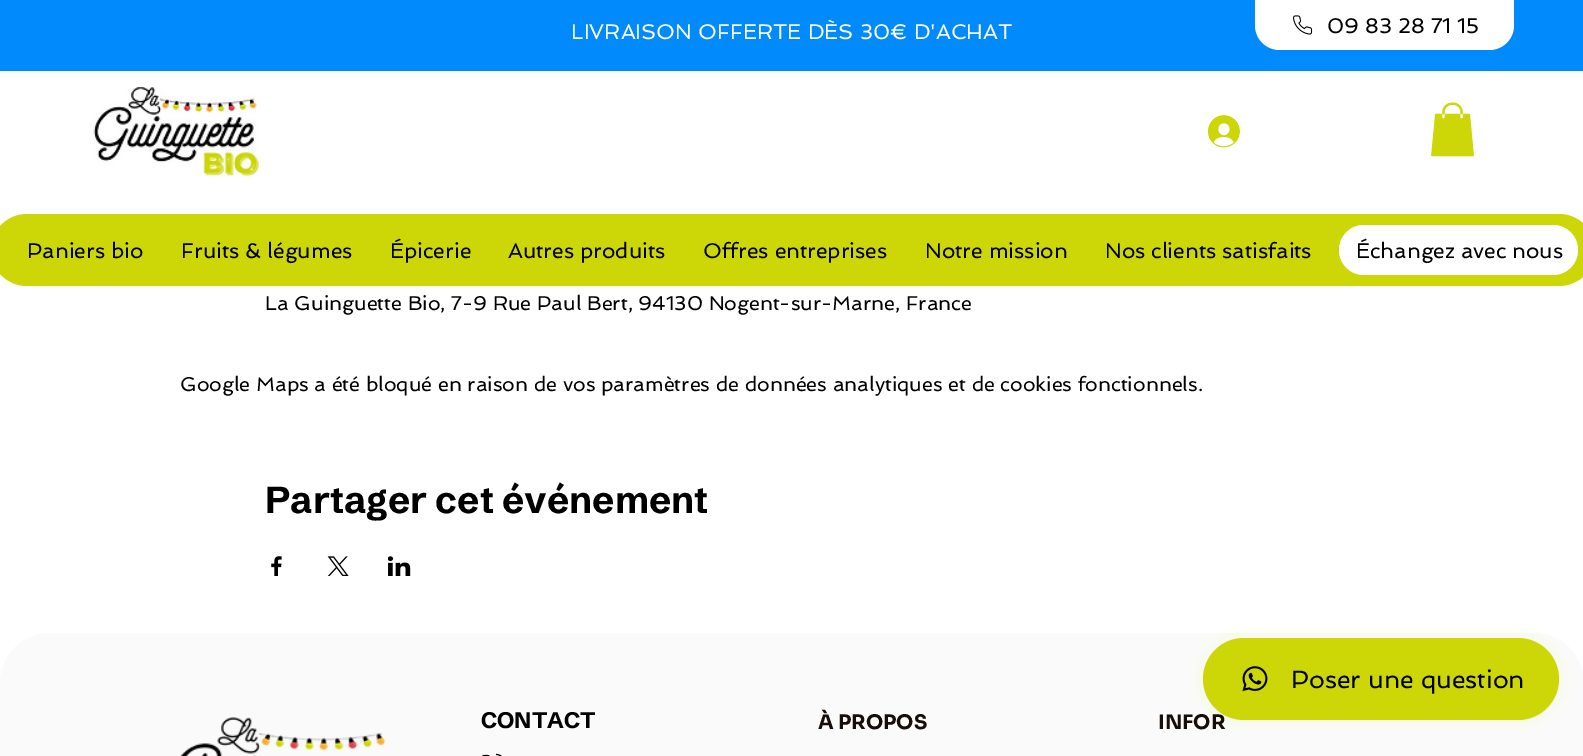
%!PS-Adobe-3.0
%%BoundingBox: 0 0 1583 756
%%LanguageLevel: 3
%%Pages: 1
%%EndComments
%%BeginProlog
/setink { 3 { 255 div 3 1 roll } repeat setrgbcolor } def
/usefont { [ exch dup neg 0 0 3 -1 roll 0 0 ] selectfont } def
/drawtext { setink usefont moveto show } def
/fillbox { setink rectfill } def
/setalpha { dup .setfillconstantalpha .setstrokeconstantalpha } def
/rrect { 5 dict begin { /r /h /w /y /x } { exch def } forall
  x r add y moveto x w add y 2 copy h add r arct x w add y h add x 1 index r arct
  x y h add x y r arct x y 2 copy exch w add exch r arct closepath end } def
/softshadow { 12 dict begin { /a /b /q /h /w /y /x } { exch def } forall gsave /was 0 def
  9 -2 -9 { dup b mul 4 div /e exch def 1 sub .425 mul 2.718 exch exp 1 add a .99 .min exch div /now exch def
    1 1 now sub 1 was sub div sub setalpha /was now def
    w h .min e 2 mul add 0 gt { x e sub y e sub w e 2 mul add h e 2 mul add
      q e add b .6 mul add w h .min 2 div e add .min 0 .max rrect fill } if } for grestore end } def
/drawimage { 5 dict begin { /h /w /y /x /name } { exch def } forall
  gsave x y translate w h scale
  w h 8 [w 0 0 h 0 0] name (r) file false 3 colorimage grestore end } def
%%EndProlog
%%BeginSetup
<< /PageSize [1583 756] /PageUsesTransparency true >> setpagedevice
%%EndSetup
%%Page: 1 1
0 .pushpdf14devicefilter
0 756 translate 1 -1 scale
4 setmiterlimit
0 0 1583 756 255 255 255 fillbox
0 0 1583 71 0 138 252 fillbox
(LIVRAISON OFFERTE DÈS 30€ D'ACHAT) 571 39 /Spinnaker-Regular 21.25 255 255 255 drawtext
1255 0 moveto 1514 0 lineto 1514 25 lineto 1514 39 1503 50 1489 50 curveto 1280 50 lineto 1266 50 1255 39 1255 25 curveto closepath fill
(assets/img1.rgb) 1293 15 20 20 drawimage
(09 83 28 71 15) 1327 33 /Spinnaker-Regular 21.25 0 0 0 drawtext
(assets/img2.rgb) 93 87 166 90 drawimage
(assets/img3.rgb) 1208 115 32 33 drawimage
(assets/img4.rgb) 1431 102 43 55 drawimage
205 214 7 setink
-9 214 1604 72 36 rrect fill
(Paniers bio) 27 258 /Spinnaker-Regular 21.25 0 0 0 drawtext
(Fruits & légumes) 181 258 /Spinnaker-Regular 21.25 0 0 0 drawtext
(Épicerie) 390 258 /Spinnaker-Regular 21.25 0 0 0 drawtext
(Autres produits) 508 258 /Spinnaker-Regular 21.25 0 0 0 drawtext
(Offres entreprises) 703 258 /Spinnaker-Regular 21.25 0 0 0 drawtext
(Notre mission) 925 258 /Spinnaker-Regular 21.25 0 0 0 drawtext
(Nos clients satisfaits) 1105 258 /Spinnaker-Regular 21.25 0 0 0 drawtext
255 255 255 setink
1339 225 239 50 25 rrect fill
(Échangez avec nous) 1356 258 /Spinnaker-Regular 21.25 0 0 0 drawtext
(La Guinguette Bio, 7-9 Rue Paul Bert, 94130 Nogent-sur-Marne, France) 265 310 /Spinnaker-Regular 20 0 0 0 drawtext
(Google Maps a été bloqué en raison de vos paramètres de données analytiques et de cookies fonctionnels.) 180 391 /Spinnaker-Regular 20 0 0 0 drawtext
(Partager cet événement) 265 513 /SchibstedGrotesk-Bold 37.5 0 0 0 drawtext
(assets/img5.rgb) 271 556 11 20 drawimage
(assets/img6.rgb) 327 556 22 20 drawimage
(assets/img7.rgb) 388 556 23 20 drawimage
250 250 250 setink
50 633 moveto 1534 633 lineto 1561.5 633 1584 655.5 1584 683 curveto 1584 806 lineto 0 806 lineto 0 683 lineto 0 655.5 22.5 633 50 633 curveto closepath fill
222 240 164 setink
1198 633 366 92 46 5 0.2 softshadow
(INFOR) 1158 729 /Sora-Bold 20 23 14 10 drawtext
205 214 7 setink
1203 638 356 82 41 rrect fill
(assets/img8.rgb) 1242 666 26 26 drawimage
(Poser une question) 1291 688 /Spinnaker-Regular 25 0 0 0 drawtext
(assets/img9.rgb) 180 717 206 39 drawimage
(CONTACT) 481 728 /SchibstedGrotesk-Bold 22.5 0 0 0 drawtext
(assets/img10.rgb) 482 753 20 3 drawimage
(À PROPOS) 818 729 /Sora-Bold 20 23 14 10 drawtext
.poppdf14devicefilter showpage
%%EOF
